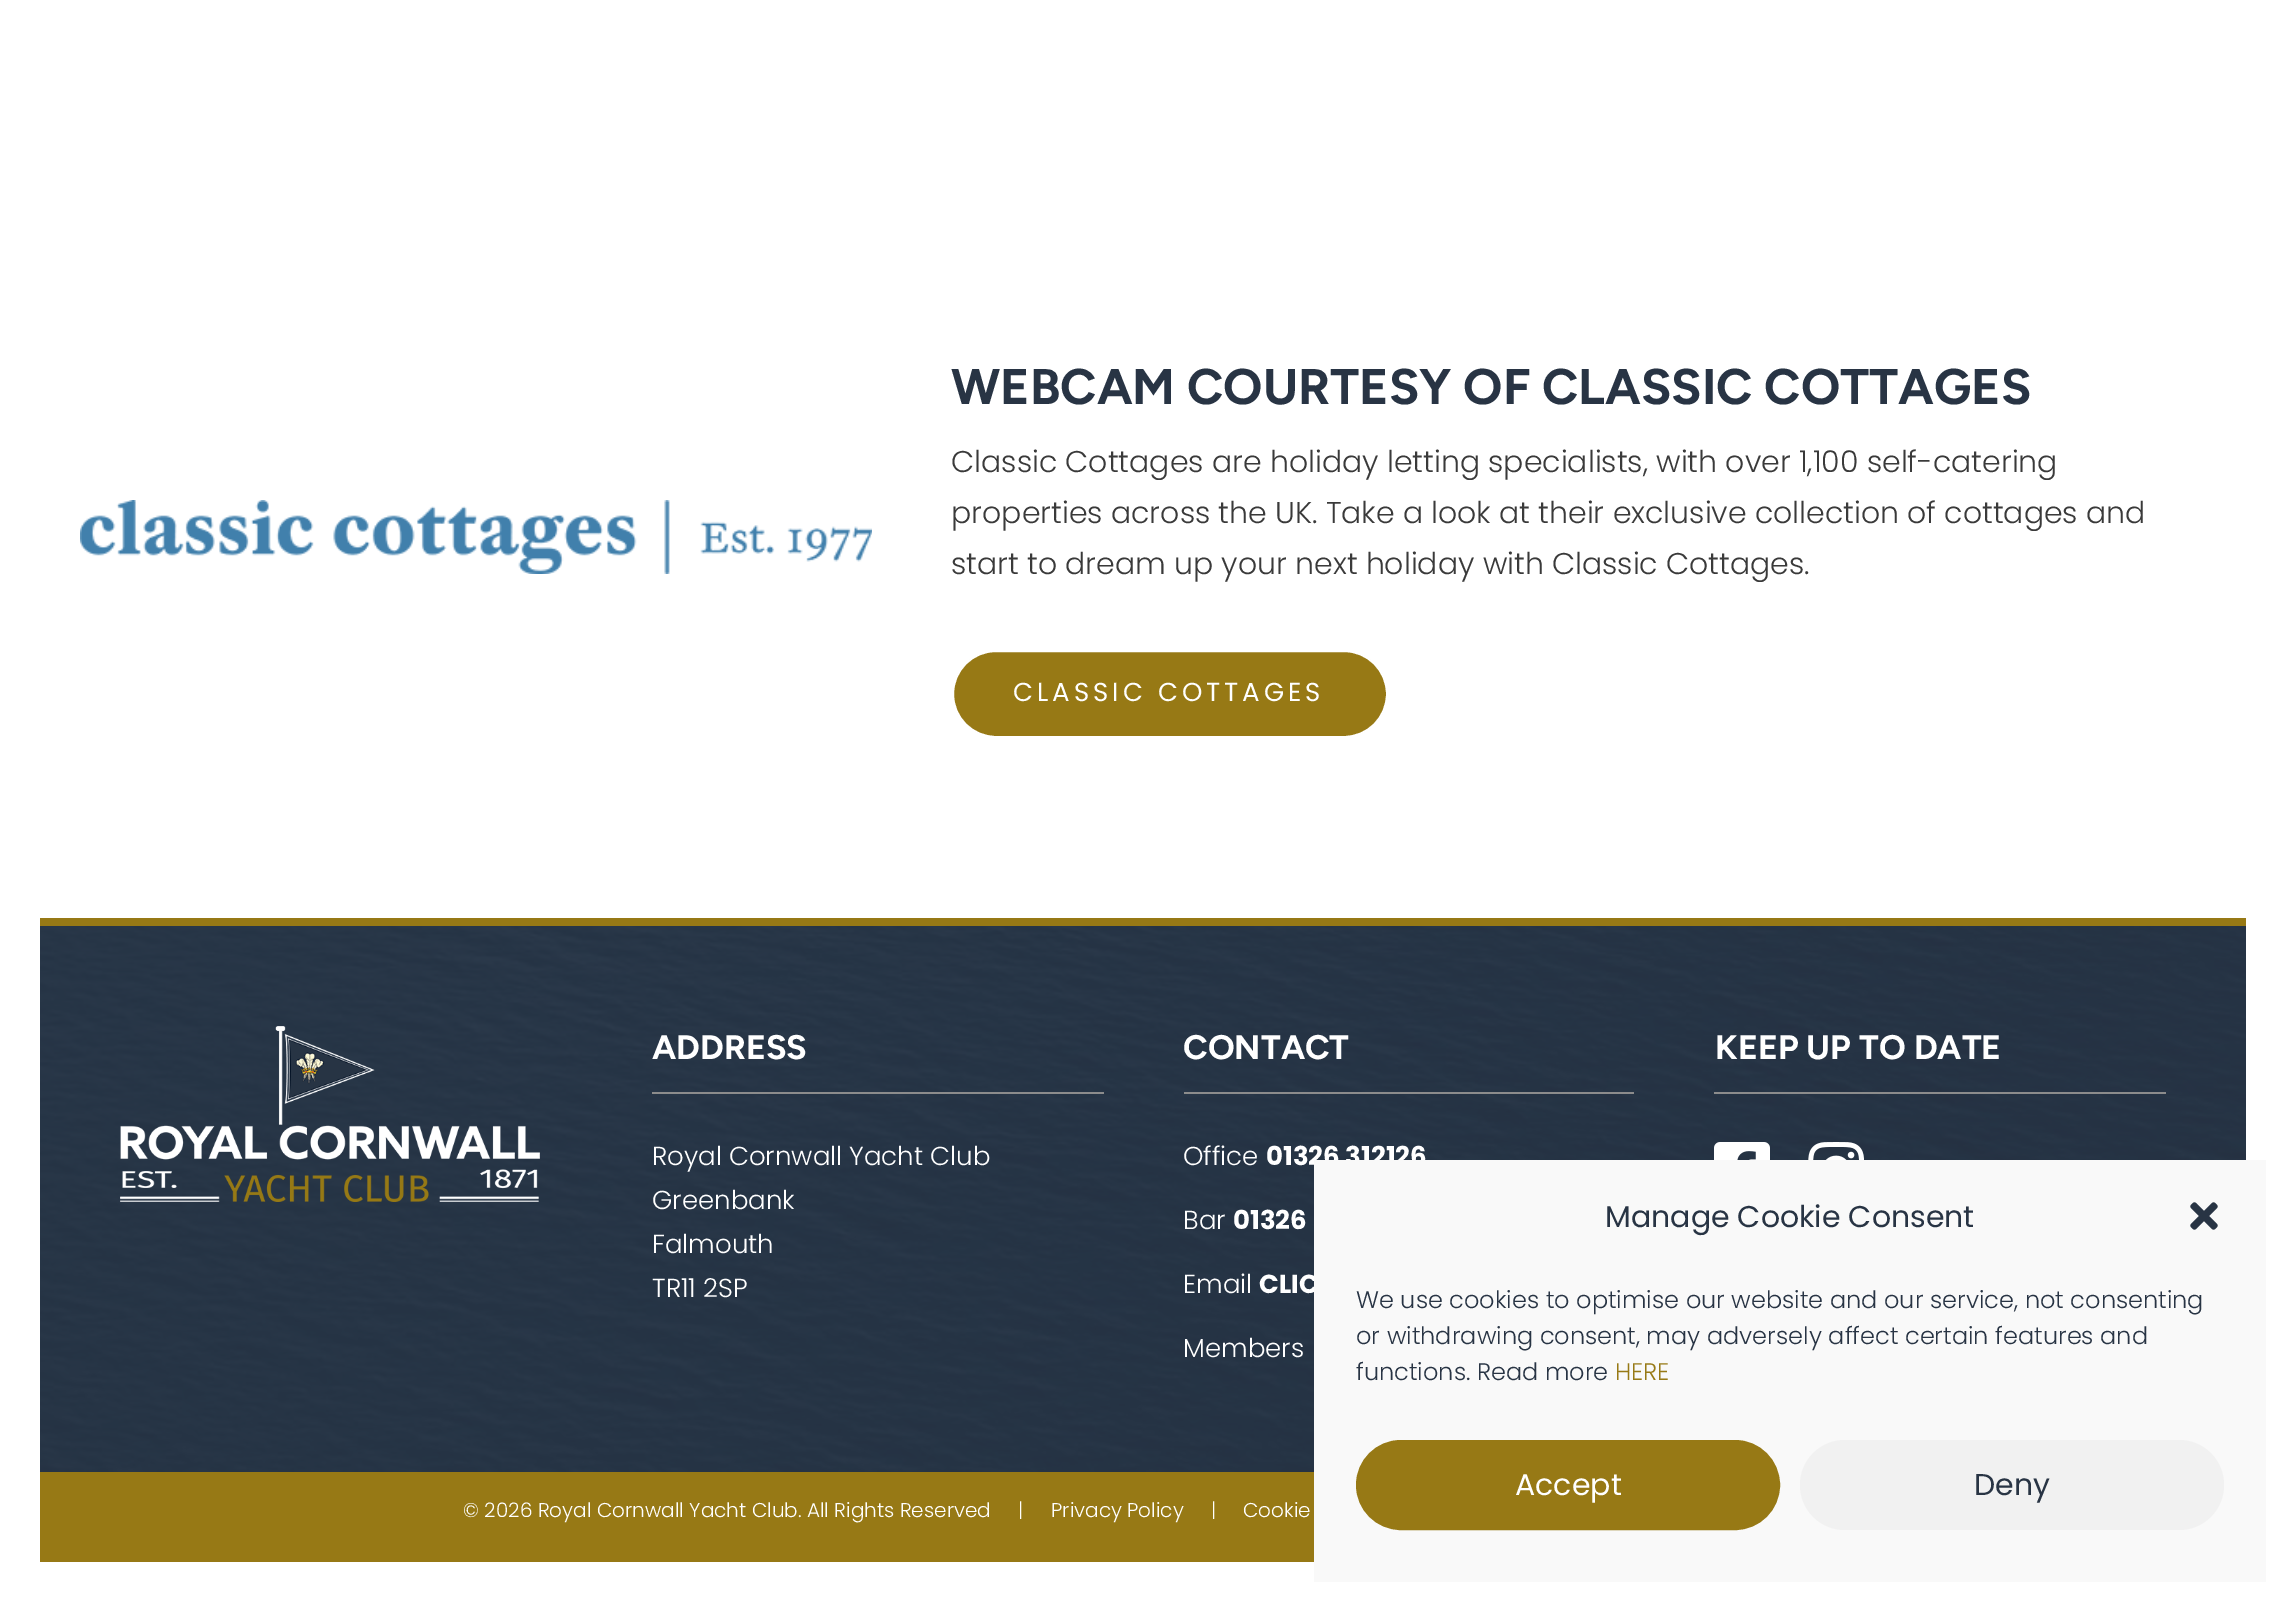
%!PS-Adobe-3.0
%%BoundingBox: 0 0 2286 1602
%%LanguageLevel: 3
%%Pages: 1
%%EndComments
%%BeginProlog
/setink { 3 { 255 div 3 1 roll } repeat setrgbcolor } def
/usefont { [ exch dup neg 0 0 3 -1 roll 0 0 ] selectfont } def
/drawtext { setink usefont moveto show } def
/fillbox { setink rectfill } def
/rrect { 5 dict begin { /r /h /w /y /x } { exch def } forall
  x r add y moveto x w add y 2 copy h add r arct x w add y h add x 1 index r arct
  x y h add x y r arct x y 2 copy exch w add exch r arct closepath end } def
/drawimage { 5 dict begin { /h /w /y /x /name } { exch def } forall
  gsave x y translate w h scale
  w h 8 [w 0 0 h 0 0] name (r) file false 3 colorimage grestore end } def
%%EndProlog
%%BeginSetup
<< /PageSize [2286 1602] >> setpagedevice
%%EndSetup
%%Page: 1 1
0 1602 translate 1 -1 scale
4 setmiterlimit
0 0 2286 1602 255 255 255 fillbox
(assets/img1.rgb) 80 500 792 74 drawimage
(WEBCAM COURTESY OF CLASSIC COTTAGES) 951 404 /Figtree-Light 50 40 52 68 drawtext
(Classic Cottages are holiday letting specialists, with over 1,100 self-catering) 951 472 /Poppins-Light 30 58 58 58 drawtext
(properties across the UK. Take a look at their exclusive collection of cottages and) 951 523 /Poppins-Light 30 58 58 58 drawtext
(start to dream up your next holiday with Classic Cottages.) 951 574 /Poppins-Light 30 58 58 58 drawtext
151 121 21 setink
953 651 434 86 43 rrect gsave fill grestore
255 255 255 setink
2 setlinewidth
stroke
/Poppins-Regular 26 usefont
1013 701 moveto 4 0 (CLASSIC COTTAGES) ashow
(assets/img2.rgb) 40 926 2206 546 drawimage
40 918 2206 8 151 121 21 fillbox
(assets/img3.rgb) 120 1026 420 176 drawimage
(ADDRESS) 652 1059 /Figtree-Light 34 255 255 255 drawtext
652 1092 452 2 140 140 140 fillbox
(Royal Cornwall Yacht Club) 652 1165 /Poppins-Light 26 255 255 255 drawtext
(Greenbank) 652 1209 /Poppins-Light 26 255 255 255 drawtext
(Falmouth) 652 1253 /Poppins-Light 26 255 255 255 drawtext
(TR11 2SP) 652 1297 /Poppins-Light 26 255 255 255 drawtext
(CONTACT) 1183 1059 /Figtree-Light 34 255 255 255 drawtext
1184 1092 450 2 140 140 140 fillbox
(Office) 1183 1165 /Poppins-Light 26 255 255 255 drawtext
(01326 312126) 1266 1165 /Poppins-Bold 26 255 255 255 drawtext
(Bar) 1183 1229 /Poppins-Light 26 255 255 255 drawtext
(01326) 1233 1229 /Poppins-Bold 26 255 255 255 drawtext
(Email) 1183 1293 /Poppins-Light 26 255 255 255 drawtext
(CLIC) 1259 1293 /Poppins-Bold 26 255 255 255 drawtext
(Members) 1183 1357 /Poppins-Light 26 255 255 255 drawtext
(KEEP UP TO DATE) 1715 1059 /Figtree-Light 34 255 255 255 drawtext
1714 1092 452 2 140 140 140 fillbox
(assets/img4.rgb) 1714 1142 56 18 drawimage
(assets/img5.rgb) 1808 1142 56 18 drawimage
40 1472 1274 90 151 121 21 fillbox
(© 2026 Royal Cornwall Yacht Club. All Rights Reserved     |) 463 1517 /Poppins-Light 20 255 255 255 drawtext
(Privacy Policy) 1051 1517 /Poppins-Light 20 255 255 255 drawtext
(|) 1211 1517 /Poppins-Light 20 255 255 255 drawtext
(Cookie) 1243 1517 /Poppins-Light 20 255 255 255 drawtext
1314 1160 952 422 249 249 249 fillbox
(Manage Cookie Consent) 1605 1227 /Poppins-Regular 30 40 52 68 drawtext
(assets/img6.rgb) 2190 1202 28 28 drawimage
(We use cookies to optimise our website and our service, not consenting) 1356 1308 /Poppins-Light 24 40 52 68 drawtext
(or withdrawing consent, may adversely affect certain features and) 1356 1344 /Poppins-Light 24 40 52 68 drawtext
(functions. Read more) 1356 1380 /Poppins-Light 24 40 52 68 drawtext
(HERE) 1615 1380 /Poppins-Light 24 151 121 21 drawtext
1357 1441 422 88 44 rrect gsave fill grestore
stroke
(Accept) 1515 1495 /Poppins-Regular 30 255 255 255 drawtext
241 241 241 setink
1800 1440 424 90 45 rrect fill
(Deny) 1974 1495 /Poppins-Regular 30 40 52 68 drawtext
showpage
%%EOF
